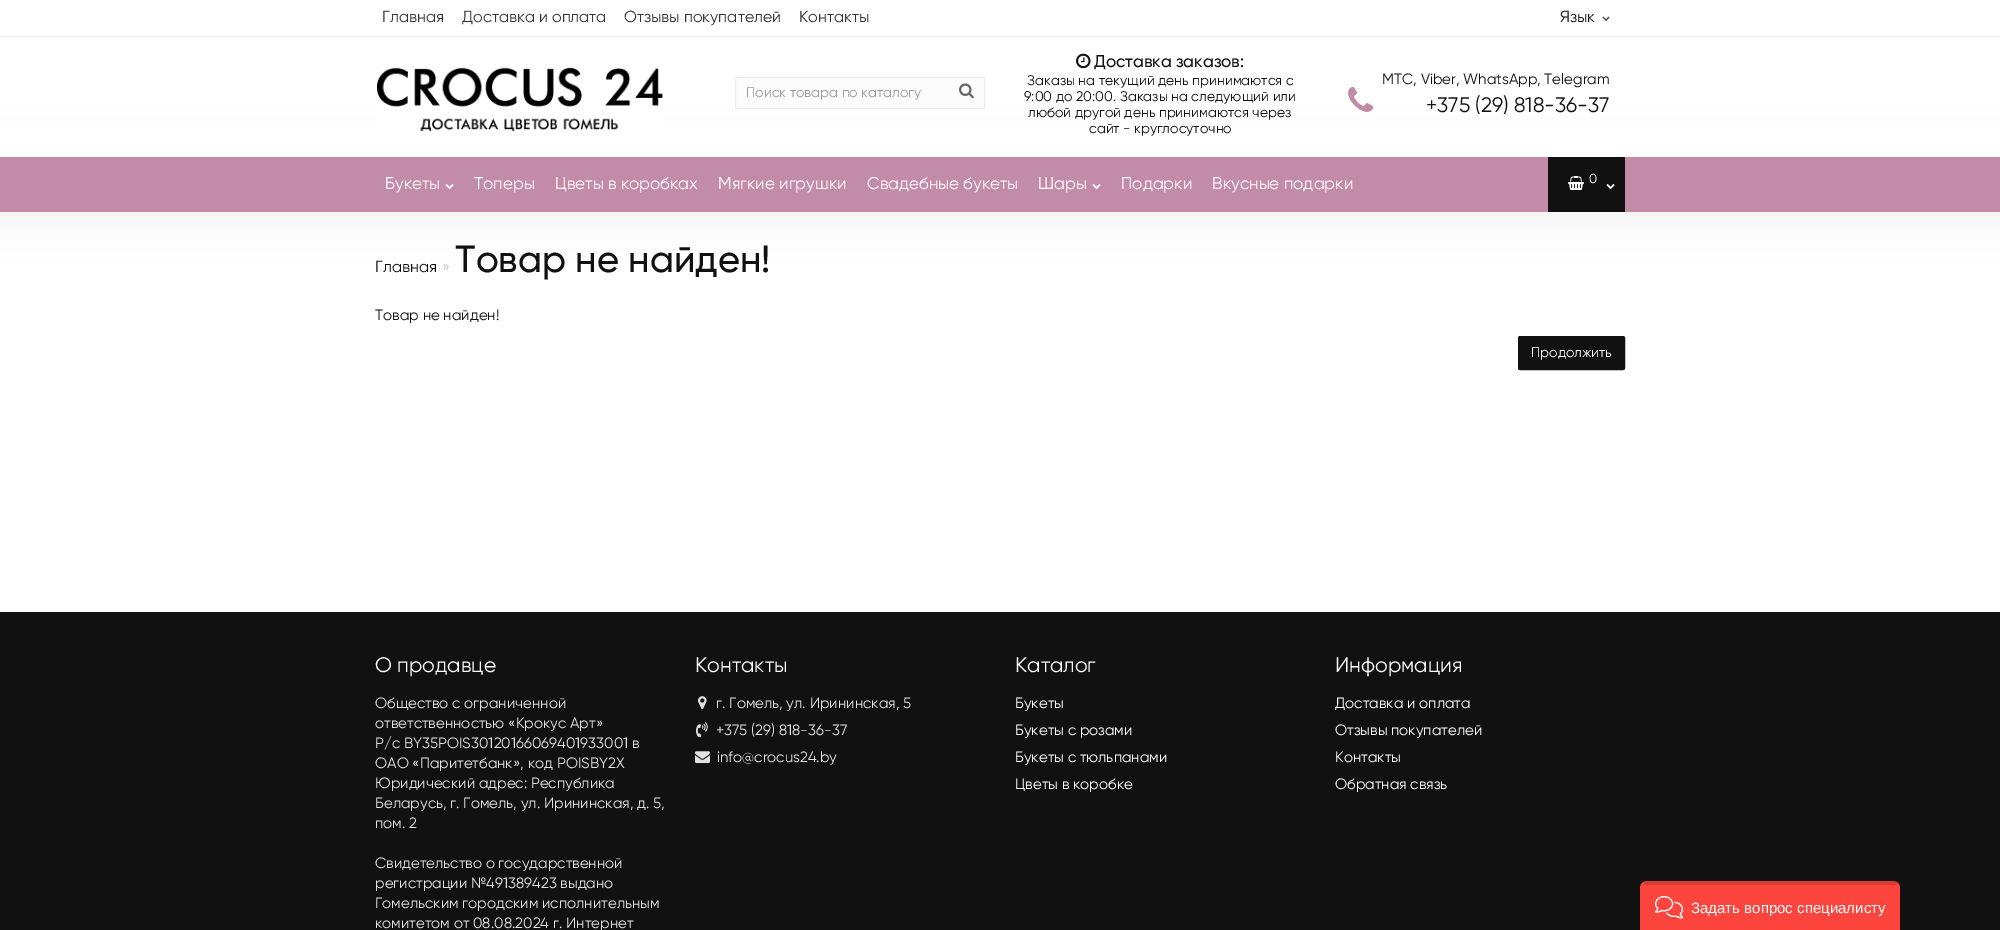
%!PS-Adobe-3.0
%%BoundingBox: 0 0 2000 930
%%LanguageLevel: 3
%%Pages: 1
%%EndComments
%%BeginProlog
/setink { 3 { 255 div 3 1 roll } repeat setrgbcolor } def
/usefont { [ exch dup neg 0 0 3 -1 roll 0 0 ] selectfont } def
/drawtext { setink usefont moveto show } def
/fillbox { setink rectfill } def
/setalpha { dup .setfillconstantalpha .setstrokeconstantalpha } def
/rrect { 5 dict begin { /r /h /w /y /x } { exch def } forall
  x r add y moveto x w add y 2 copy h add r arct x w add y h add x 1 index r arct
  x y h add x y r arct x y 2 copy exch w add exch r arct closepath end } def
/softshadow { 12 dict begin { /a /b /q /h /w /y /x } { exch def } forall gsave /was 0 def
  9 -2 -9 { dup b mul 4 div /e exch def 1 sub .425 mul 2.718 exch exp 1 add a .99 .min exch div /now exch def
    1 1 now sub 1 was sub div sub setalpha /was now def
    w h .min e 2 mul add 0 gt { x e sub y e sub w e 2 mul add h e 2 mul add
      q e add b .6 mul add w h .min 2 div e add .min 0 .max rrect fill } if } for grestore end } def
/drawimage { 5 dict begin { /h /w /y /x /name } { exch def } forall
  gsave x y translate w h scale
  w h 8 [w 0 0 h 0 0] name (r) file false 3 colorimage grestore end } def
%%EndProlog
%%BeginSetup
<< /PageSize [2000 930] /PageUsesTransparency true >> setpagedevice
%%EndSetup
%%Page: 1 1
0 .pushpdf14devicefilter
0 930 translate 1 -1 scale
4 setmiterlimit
0 0 2000 930 255 255 255 fillbox
0 36 2000 1 237 237 237 fillbox
(Главная) 382 22 /Gilroy-Regular 16 51 51 51 drawtext
(Доставка и оплата) 462 22 /Gilroy-Regular 16 51 51 51 drawtext
(Отзывы покупателей) 624 22 /Gilroy-Regular 16 51 51 51 drawtext
(Контакты) 799 22 /Gilroy-Regular 16 51 51 51 drawtext
(Язык) 1560 22 /Gilroy-Regular 16 17 17 17 drawtext
(assets/img1.rgb) 1602 16 8 5 drawimage
0 0 0 setink
-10 147 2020 75 0 25 0.05 softshadow
0 126 2000 31 255 255 255 fillbox
(assets/img2.rgb) 377 67 286 65 drawimage
252 252 252 setink
735.5 77.5 249 31 1.5 rrect gsave fill grestore
237 237 237 setink
stroke
(Поиск товара по каталогу) 746 97 /Gilroy-Regular 14 153 153 153 drawtext
(assets/img3.rgb) 959 83 15 16 drawimage
(assets/img4.rgb) 1076 53 15 16 drawimage
(Доставка заказов:) 1094 67 /Gilroy-Medium 17 17 17 17 drawtext
(Заказы на текущий день принимаются с) 1027 85 /Gilroy-Regular 14 17 17 17 drawtext
(9:00 до 20:00. Заказы на следующий или) 1024 101 /Gilroy-Regular 14 17 17 17 drawtext
(любой другой день принимаются через) 1028 117 /Gilroy-Regular 14 17 17 17 drawtext
(сайт - круглосуточно) 1089 133 /Gilroy-Regular 14 17 17 17 drawtext
(assets/img5.rgb) 1348 86 26 26 drawimage
(МТС, Viber, WhatsApp, Telegram) 1382 84 /Gilroy-Regular 15 17 17 17 drawtext
(+375 \(29\) 818-36-37) 1426 112 /Gilroy-Regular 21 17 17 17 drawtext
0 157 2000 55 194 139 168 fillbox
(Букеты) 385 189 /Gilroy-Regular 17 255 255 255 drawtext
(assets/img6.rgb) 445 184 9 6 drawimage
(Топеры) 474 189 /Gilroy-Regular 17 255 255 255 drawtext
(Цветы в коробках) 555 189 /Gilroy-Regular 17 255 255 255 drawtext
(Мягкие игрушки) 718 189 /Gilroy-Regular 17 255 255 255 drawtext
(Свадебные букеты) 867 189 /Gilroy-Regular 17 255 255 255 drawtext
(Шары) 1038 189 /Gilroy-Regular 17 255 255 255 drawtext
(assets/img6.rgb) 1092 184 9 6 drawimage
(Подарки) 1121 189 /Gilroy-Regular 17 255 255 255 drawtext
(Вкусные подарки) 1212 189 /Gilroy-Regular 17 255 255 255 drawtext
1548 157 77 55 17 17 17 fillbox
(assets/img7.rgb) 1568 176 16 14 drawimage
(0) 1589 183 /Gilroy-Regular 13 255 255 255 drawtext
(assets/img8.rgb) 1606 184 9 6 drawimage
(Главная) 375 272 /Gilroy-Regular 16 17 17 17 drawtext
(») 442 272 /Gilroy-Regular 16 204 204 204 drawtext
(Товар не найден!) 455 272 /Gilroy-Medium 38 17 17 17 drawtext
(Товар не найден!) 375 320 /Gilroy-Regular 15 17 17 17 drawtext
1518.5 336.5 106 33 1.5 rrect gsave fill grestore
stroke
(Продолжить) 1531 357 /Gilroy-Regular 14 255 255 255 drawtext
0 612 2000 318 17 17 17 fillbox
(О продавце) 375 672 /Gilroy-Regular 21 255 255 255 drawtext
(Общество с ограниченной) 375 708 /Gilroy-Regular 15 226 226 226 drawtext
(ответственностью «Крокус Арт») 375 728 /Gilroy-Regular 15 226 226 226 drawtext
(Р/с BY35POIS30120166069401933001 в) 375 748 /Gilroy-Regular 15 226 226 226 drawtext
(ОАО «Паритетбанк», код POISBY2X) 375 768 /Gilroy-Regular 15 226 226 226 drawtext
(Юридический адрес: Республика) 375 788 /Gilroy-Regular 15 226 226 226 drawtext
(Беларусь, г. Гомель, ул. Ирининская, д. 5,) 375 808 /Gilroy-Regular 15 226 226 226 drawtext
(пом. 2) 375 828 /Gilroy-Regular 15 226 226 226 drawtext
(Свидетельство о государственной) 375 868 /Gilroy-Regular 15 226 226 226 drawtext
(регистрации №491389423 выдано) 375 888 /Gilroy-Regular 15 226 226 226 drawtext
(Гомельским городским исполнительным) 375 908 /Gilroy-Regular 15 226 226 226 drawtext
(комитетом от 08.08.2024 г. Интернет) 375 928 /Gilroy-Regular 15 226 226 226 drawtext
(Контакты) 695 672 /Gilroy-Regular 21 255 255 255 drawtext
(assets/img9.rgb) 698 696 9 13 drawimage
(г. Гомель, ул. Ирининская, 5) 716 708 /Gilroy-Regular 15 226 226 226 drawtext
(assets/img10.rgb) 696 722 12 16 drawimage
(+375 \(29\) 818-36-37) 716 735 /Gilroy-Regular 15 226 226 226 drawtext
(assets/img11.rgb) 695 751 15 13 drawimage
(info@crocus24.by) 717 762 /Gilroy-Regular 15 226 226 226 drawtext
(Каталог) 1015 672 /Gilroy-Regular 21 255 255 255 drawtext
(Букеты) 1015 708 /Gilroy-Regular 15 255 255 255 drawtext
(Букеты с розами) 1015 735 /Gilroy-Regular 15 255 255 255 drawtext
(Букеты с тюльпанами) 1015 762 /Gilroy-Regular 15 255 255 255 drawtext
(Цветы в коробке) 1015 789 /Gilroy-Regular 15 255 255 255 drawtext
(Информация) 1335 672 /Gilroy-Regular 21 255 255 255 drawtext
(Доставка и оплата) 1335 708 /Gilroy-Regular 15 255 255 255 drawtext
(Отзывы покупателей) 1335 735 /Gilroy-Regular 15 255 255 255 drawtext
(Контакты) 1335 762 /Gilroy-Regular 15 255 255 255 drawtext
(Обратная связь) 1335 789 /Gilroy-Regular 15 255 255 255 drawtext
254 69 61 setink
1647 881 moveto 1893 881 lineto 1897 881 1900 884 1900 888 curveto 1900 930 lineto 1640 930 lineto 1640 888 lineto 1640 884 1643 881 1647 881 curveto closepath fill
0.15 setalpha
1644 881 253 4 0 0 0 fillbox
1 setalpha
(assets/img12.rgb) 1655 896 29 23 drawimage
(Задать вопрос специалисту) 1691 913 /LiberationSans-Regular 15 255 255 255 drawtext
.poppdf14devicefilter showpage
%%EOF
